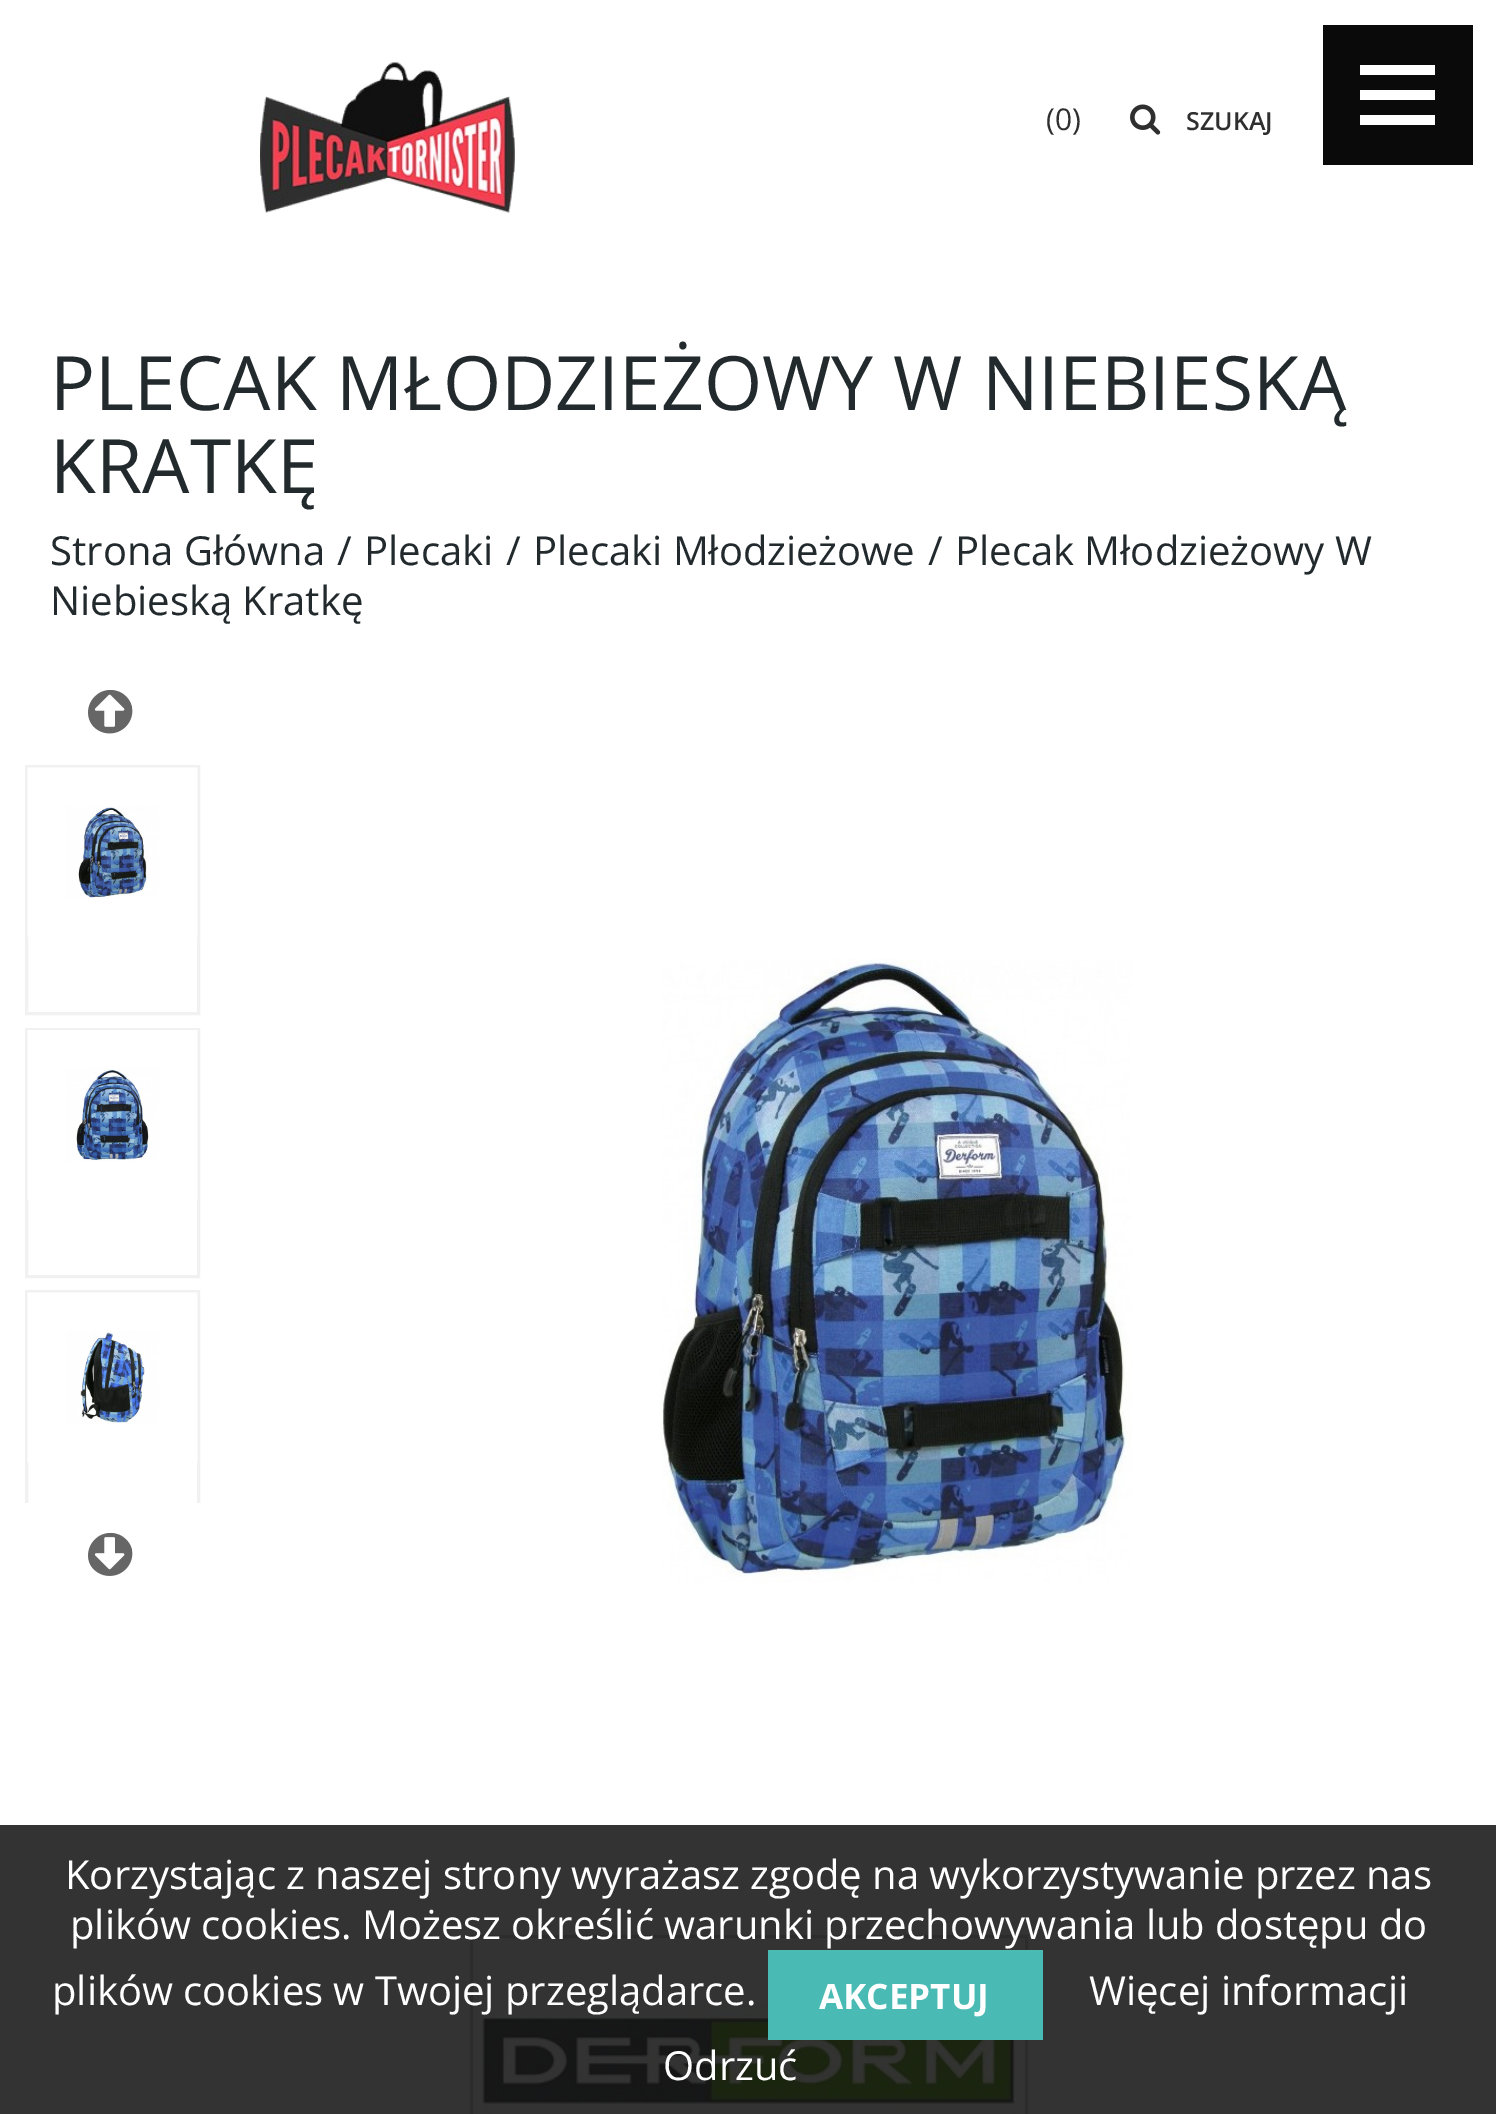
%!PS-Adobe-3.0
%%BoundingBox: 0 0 1496 2114
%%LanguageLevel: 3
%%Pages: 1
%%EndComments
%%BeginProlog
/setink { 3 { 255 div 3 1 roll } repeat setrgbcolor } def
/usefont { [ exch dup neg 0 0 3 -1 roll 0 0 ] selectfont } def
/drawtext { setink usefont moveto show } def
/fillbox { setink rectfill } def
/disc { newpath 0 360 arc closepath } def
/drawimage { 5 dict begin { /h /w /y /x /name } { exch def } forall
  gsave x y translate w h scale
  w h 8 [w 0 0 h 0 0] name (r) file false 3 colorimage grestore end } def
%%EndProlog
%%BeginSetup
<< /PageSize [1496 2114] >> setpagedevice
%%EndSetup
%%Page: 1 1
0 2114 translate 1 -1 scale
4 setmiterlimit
0 0 1496 2114 255 255 255 fillbox
0 1825 1496 289 51 51 51 fillbox
1323 25 150 140 10 10 10 fillbox
1360 90 75 10 255 255 255 fillbox
1360 65 75 10 255 255 255 fillbox
1360 115 75 10 255 255 255 fillbox
(assets/img1.rgb) 260 62 255 151 drawimage
(\(0\)) 1046 130 /OpenSans-Regular 30 47 47 47 drawtext
(assets/img2.rgb) 1130 104 31 31 drawimage
(SZUKAJ) 1186 130 /OpenSans-SemiBold 25 47 47 47 drawtext
(PLECAK MŁODZIEŻOWY W NIEBIESKĄ) 50 410 /OpenSans-Regular 75 34 42 45 drawtext
(KRATKĘ) 50 493 /OpenSans-Regular 75 34 42 45 drawtext
(Strona Główna) 50 565 /OpenSans-Regular 40 34 42 45 drawtext
(/) 337 565 /OpenSans-Regular 40 34 42 45 drawtext
(Plecaki) 364 565 /OpenSans-Regular 40 34 42 45 drawtext
(/) 506 565 /OpenSans-Regular 40 34 42 45 drawtext
(Plecaki Młodzieżowe) 533 565 /OpenSans-Regular 40 34 42 45 drawtext
(/) 928 565 /OpenSans-Regular 40 34 42 45 drawtext
(Plecak Młodzieżowy W) 955 565 /OpenSans-Regular 40 34 42 45 drawtext
(Niebieską Kratkę) 50 615 /OpenSans-Regular 40 34 42 45 drawtext
102 102 102 setink
110.5 712.5 22.5 disc fill
(assets/img3.rgb) 88 694 45 41 drawimage
241 241 241 setink
3 setlinewidth
26.5 766.5 172 247 rectstroke
(assets/img4.rgb) 27 767 171 170 drawimage
26.5 1029.5 172 247 rectstroke
(assets/img5.rgb) 27 1030 171 170 drawimage
102 102 102 setink
110.5 1555.5 22.5 disc fill
(assets/img7.rgb) 88 1537 45 41 drawimage
gsave
25 765 290 738 rectclip
241 241 241 setink
26.5 1291.5 172 247 rectstroke
grestore
(assets/img6.rgb) 27 1292 171 170 drawimage
(assets/img8.rgb) 660 959 472 623 drawimage
44 44 44 setink
471.5 1936.5 555 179 rectstroke
(assets/img9.rgb) 482 1999 533 115 drawimage
(Korzystając z naszej strony wyrażasz zgodę na wykorzystywanie przez nas) 65 1889 /OpenSans-Regular 40 255 255 255 drawtext
(plików cookies. Możesz określić warunki przechowywania lub dostępu do) 70 1939 /OpenSans-Regular 40 255 255 255 drawtext
(plików cookies w Twojej przeglądarce.) 52 2005 /OpenSans-Regular 40 255 255 255 drawtext
768 1950 275 90 73 187 180 fillbox
(AKCEPTUJ) 819 2009 /OpenSans-Bold 35 255 255 255 drawtext
(Więcej informacji) 1089 2005 /OpenSans-Regular 40 255 255 255 drawtext
(Odrzuć) 663 2080 /OpenSans-Regular 40 255 255 255 drawtext
showpage
%%EOF
